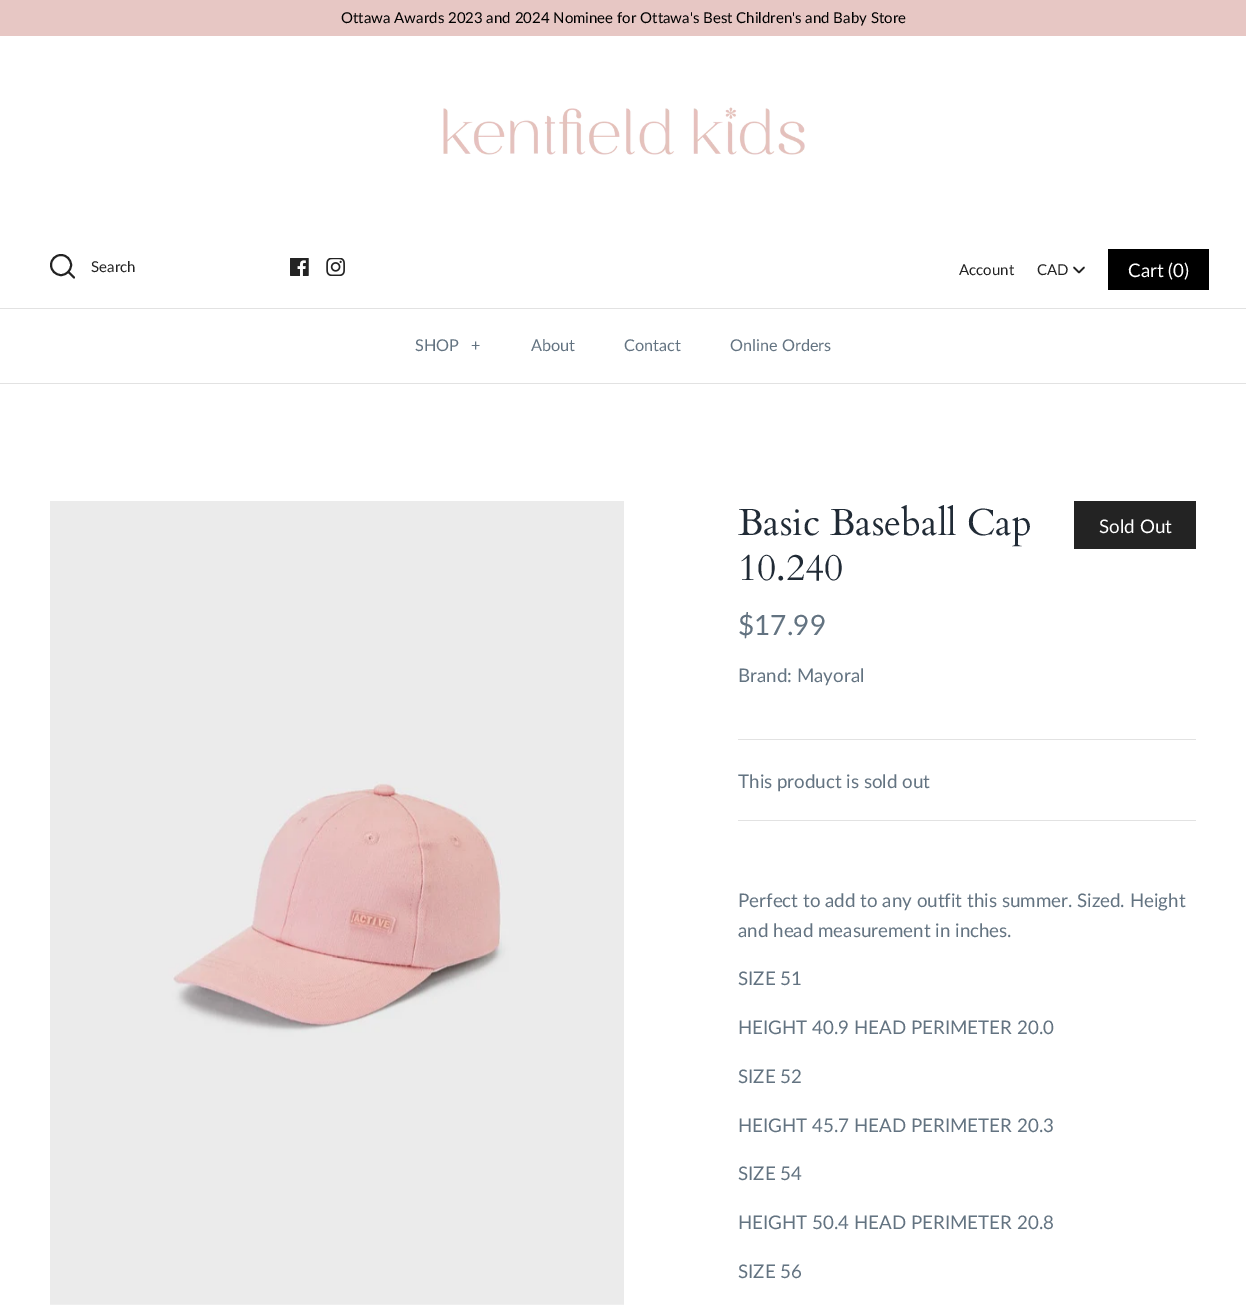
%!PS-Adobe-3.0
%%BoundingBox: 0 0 1246 1313
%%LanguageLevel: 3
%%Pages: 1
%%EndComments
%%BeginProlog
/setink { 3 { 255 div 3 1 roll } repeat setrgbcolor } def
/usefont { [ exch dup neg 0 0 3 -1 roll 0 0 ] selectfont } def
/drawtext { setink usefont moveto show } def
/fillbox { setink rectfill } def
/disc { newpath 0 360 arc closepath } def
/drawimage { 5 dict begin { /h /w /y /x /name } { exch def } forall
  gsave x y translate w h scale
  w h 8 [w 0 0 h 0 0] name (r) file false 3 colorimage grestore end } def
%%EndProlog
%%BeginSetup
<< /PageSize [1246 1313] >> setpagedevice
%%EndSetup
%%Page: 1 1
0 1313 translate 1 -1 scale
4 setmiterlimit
0 0 1246 1313 255 255 255 fillbox
0 0 1246 36 231 199 196 fillbox
(Ottawa Awards 2023 and 2024 Nominee for Ottawa's Best Children's and Baby Store) 341 23 /Lato-Regular 15 0 0 0 drawtext
(assets/img1.rgb) 443 107 362 48 drawimage
35 35 35 setink
1.9 setlinewidth
61 265 10 disc stroke
1 setlinecap
1 setlinejoin
74 277.5 moveto 68.5 272 lineto stroke
(Search) 91 272 /Lato-Regular 15 35 35 35 drawtext
(assets/img2.rgb) 290 258 19 18 drawimage
(assets/img3.rgb) 326 258 19 18 drawimage
(Account) 959 275 /Lato-Regular 15 35 35 35 drawtext
(CAD) 1037 275 /Lato-Regular 15 35 35 35 drawtext
1.7 setlinewidth
1074 267.5 moveto 1079 272.5 lineto 1084 267.5 lineto stroke
1108 249 101 41 0 0 0 fillbox
(Cart \(0\)) 1128 277 /Lato-Regular 18.75 255 255 255 drawtext
0 383 1246 1 226 226 226 fillbox
0 308 1246 1 226 226 226 fillbox
(SHOP) 415 351 /Lato-Regular 16.25 99 115 129 drawtext
(+) 471 351 /Lato-Regular 16.25 99 115 129 drawtext
(About) 531 351 /Lato-Regular 16.25 99 115 129 drawtext
(Contact) 624 351 /Lato-Regular 16.25 99 115 129 drawtext
(Online Orders) 730 351 /Lato-Regular 16.25 99 115 129 drawtext
(assets/img4.rgb) 50 501 574 804 drawimage
738 739 458 1 226 226 226 fillbox
(Basic Baseball Cap) 738 535 /Cardo-Regular 37.5 33 43 54 drawtext
(10.240) 738 580 /Cardo-Regular 37.5 33 43 54 drawtext
1074 501 122 48 35 35 35 fillbox
(Sold Out) 1099 533 /Lato-Regular 18.75 255 255 255 drawtext
($17.99) 738 635 /Lato-Regular 28 99 115 129 drawtext
(Brand: Mayoral) 738 682 /Lato-Regular 18.75 99 115 129 drawtext
738 820 458 1 226 226 226 fillbox
(This product is sold out) 738 788 /Lato-Regular 18.75 99 115 129 drawtext
(Perfect to add to any outfit this summer. Sized. Height) 738 907 /Lato-Regular 18.75 99 115 129 drawtext
(and head measurement in inches.) 738 937 /Lato-Regular 18.75 99 115 129 drawtext
(SIZE 51) 738 985 /Lato-Regular 18.75 99 115 129 drawtext
(HEIGHT 40.9 HEAD PERIMETER 20.0) 738 1034 /Lato-Regular 18.75 99 115 129 drawtext
(SIZE 52) 738 1083 /Lato-Regular 18.75 99 115 129 drawtext
(HEIGHT 45.7 HEAD PERIMETER 20.3) 738 1132 /Lato-Regular 18.75 99 115 129 drawtext
(SIZE 54) 738 1180 /Lato-Regular 18.75 99 115 129 drawtext
(HEIGHT 50.4 HEAD PERIMETER 20.8) 738 1229 /Lato-Regular 18.75 99 115 129 drawtext
(SIZE 56) 738 1278 /Lato-Regular 18.75 99 115 129 drawtext
showpage
%%EOF
